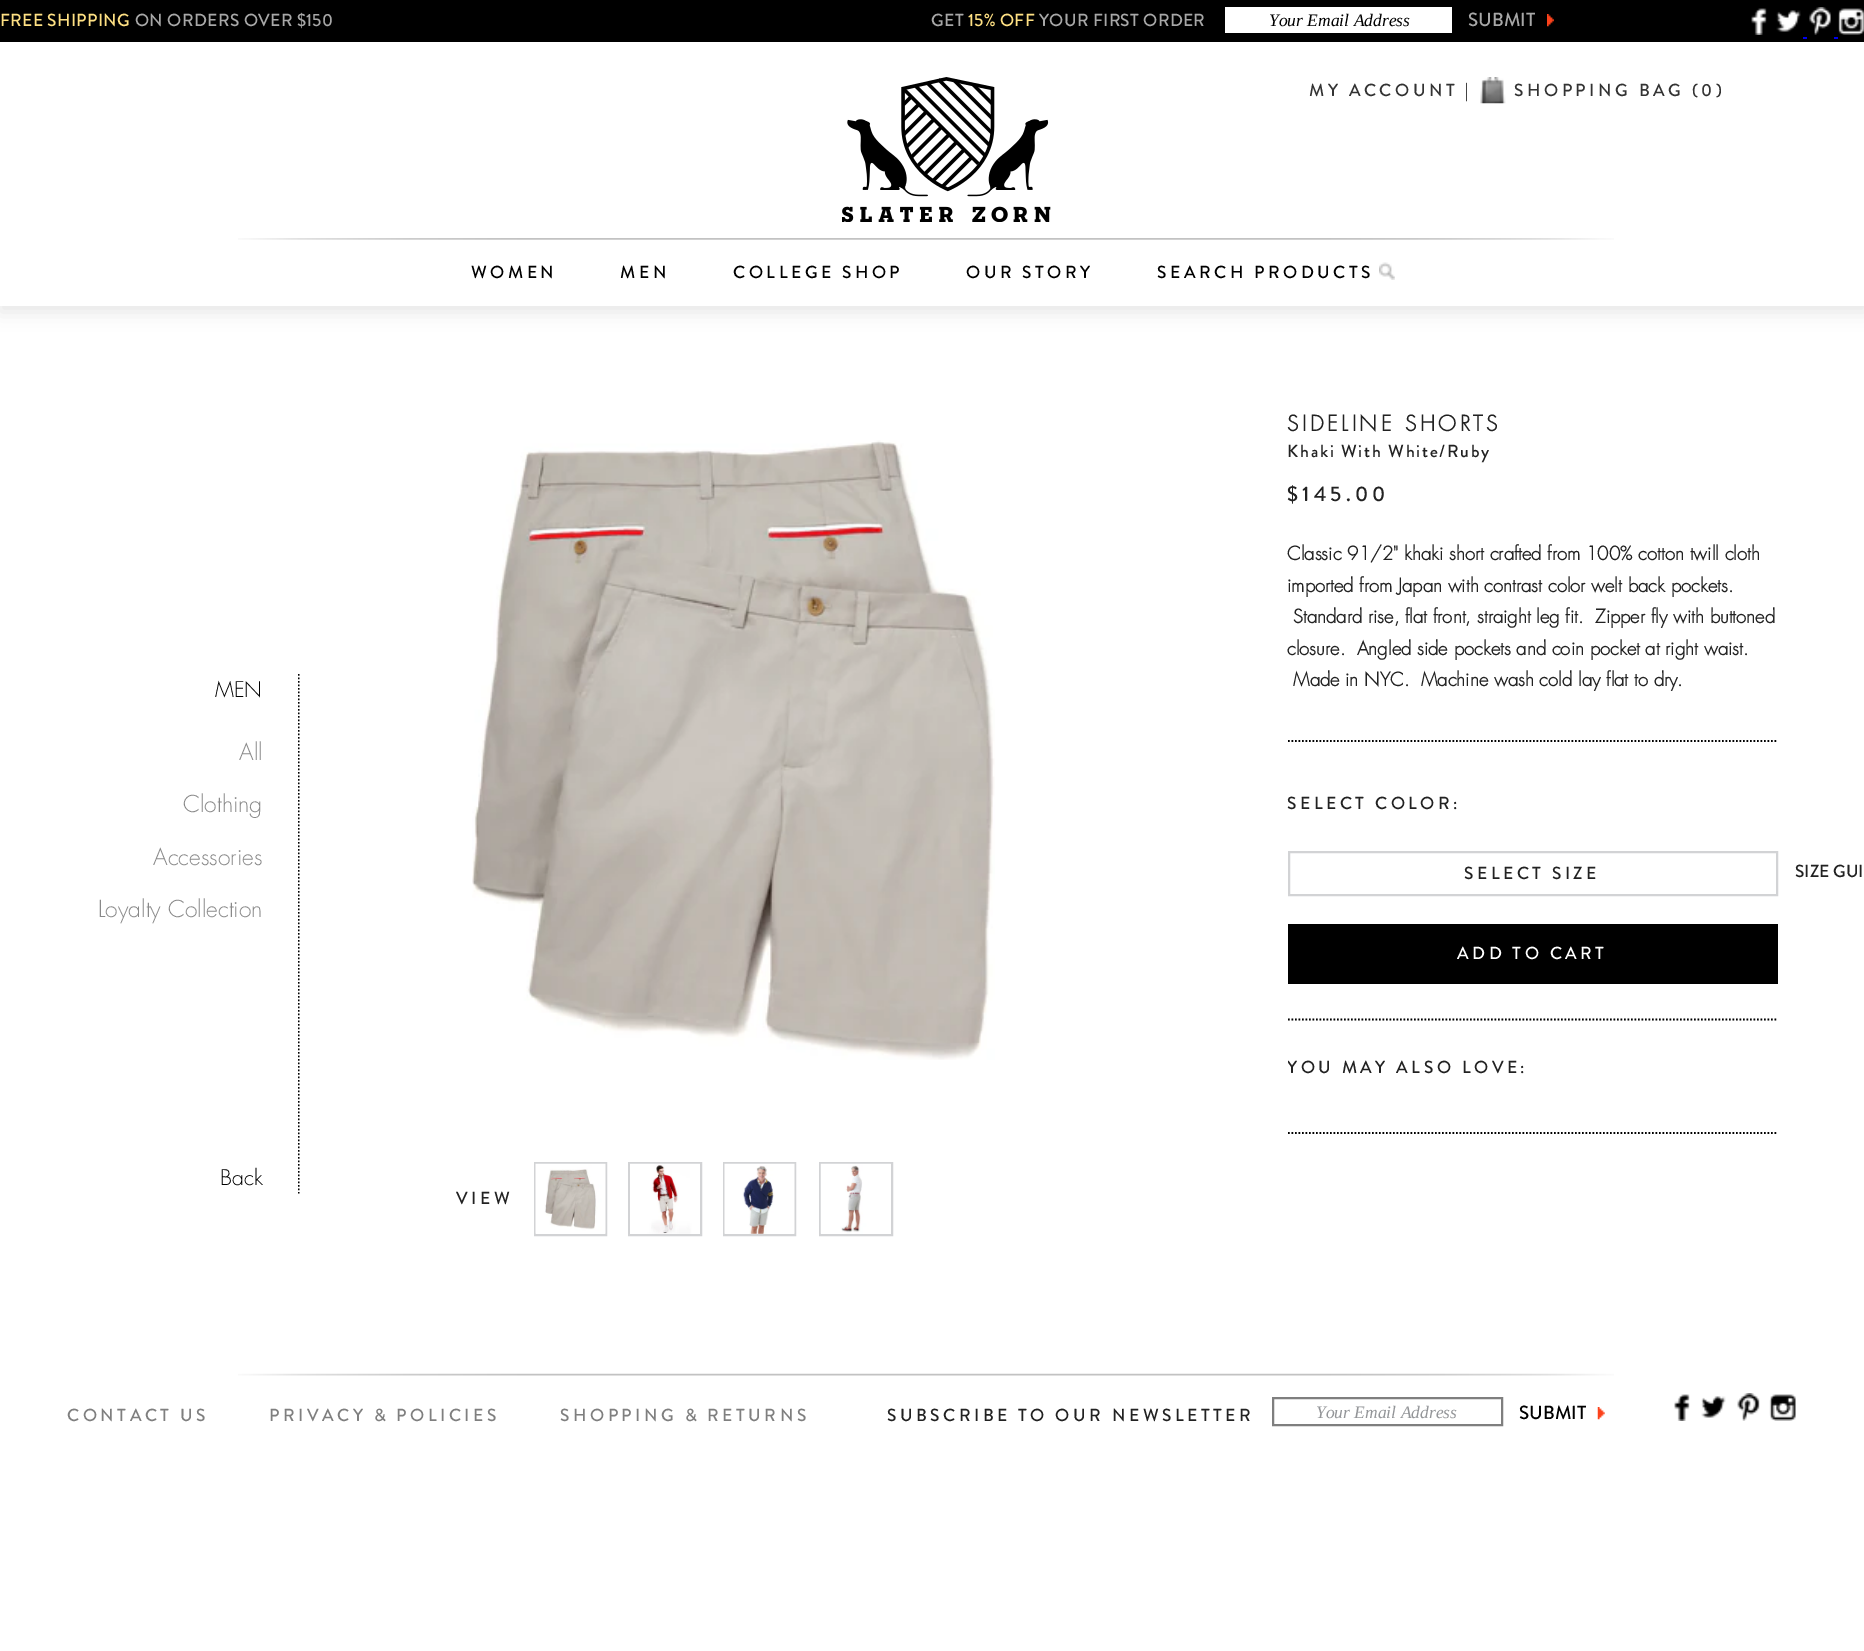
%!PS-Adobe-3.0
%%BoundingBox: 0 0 1864 1651
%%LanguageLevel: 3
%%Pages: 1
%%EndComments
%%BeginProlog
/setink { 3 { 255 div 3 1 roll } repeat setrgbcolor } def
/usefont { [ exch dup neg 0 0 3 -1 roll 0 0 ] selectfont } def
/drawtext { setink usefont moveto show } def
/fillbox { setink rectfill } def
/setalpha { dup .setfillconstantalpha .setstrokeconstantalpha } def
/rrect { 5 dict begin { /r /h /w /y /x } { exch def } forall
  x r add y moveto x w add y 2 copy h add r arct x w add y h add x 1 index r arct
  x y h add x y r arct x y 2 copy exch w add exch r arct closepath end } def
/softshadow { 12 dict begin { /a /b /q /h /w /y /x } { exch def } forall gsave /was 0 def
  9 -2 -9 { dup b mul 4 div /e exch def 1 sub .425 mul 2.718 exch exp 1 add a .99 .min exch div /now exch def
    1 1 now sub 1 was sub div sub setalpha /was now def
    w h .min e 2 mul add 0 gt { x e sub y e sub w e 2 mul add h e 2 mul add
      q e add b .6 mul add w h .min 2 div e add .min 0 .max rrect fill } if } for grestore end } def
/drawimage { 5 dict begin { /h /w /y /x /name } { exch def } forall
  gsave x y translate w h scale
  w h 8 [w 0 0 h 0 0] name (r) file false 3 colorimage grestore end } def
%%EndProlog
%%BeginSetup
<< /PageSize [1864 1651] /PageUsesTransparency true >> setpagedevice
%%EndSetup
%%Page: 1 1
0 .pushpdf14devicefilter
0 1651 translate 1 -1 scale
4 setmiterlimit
0 0 1864 1651 255 255 255 fillbox
0 0 0 setink
0 -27 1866 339 0 9 0.1 softshadow
0 0 1864 42 0 0 0 fillbox
/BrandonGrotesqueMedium-Medium 17.5 usefont
254 224 131 setink
0 26 moveto 0.3 0 (FREE SHIPPING) ashow
167 167 167 setink
135 26 moveto 0.3 0 (ON ORDERS OVER $150) ashow
931 26 moveto 0.3 0 (GET) ashow
254 224 131 setink
968 26 moveto 0.3 0 (15% OFF) ashow
167 167 167 setink
1039 26 moveto 0.3 0 (YOUR FIRST ORDER) ashow
1225 7 227 26 255 255 255 fillbox
(Your Email Address) 1269 26 /LiberationSerif-Italic 17.5 0 0 0 drawtext
(assets/img1.rgb) 1547 14 7 13 drawimage
(SUBMIT) 1468 26 /BrandonGrotesqueMedium-Medium 19 167 167 167 drawtext
(assets/img2.rgb) 1751 8 16 27 drawimage
(assets/img3.rgb) 1776 10 25 22 drawimage
(assets/img4.rgb) 1809 7 22 28 drawimage
(assets/img5.rgb) 1838 8 26 27 drawimage
1803 37 4 2 0 0 238 fillbox
1834 37 4 2 0 0 238 fillbox
0 42 1864 264 255 255 255 fillbox
(assets/img6.rgb) 842 77 209 145 drawimage
/BrandonGrotesqueMedium-Medium 17.5 usefont
51 51 51 setink
1309 96 moveto 3.5 0 (MY ACCOUNT) ashow
0 0 0 setink
1465 96 moveto 3.5 0 (|) ashow
(assets/img7.rgb) 1480 77 26 27 drawimage
51 51 51 setink
1514 96 moveto 3.5 0 (SHOPPING BAG \(0\)) ashow
(assets/img8.rgb) 238 238 1376 2 drawimage
0 0 0 setink
471 278 moveto 3.5 0 (WOMEN) ashow
620 278 moveto 3.5 0 (MEN) ashow
733 278 moveto 3.5 0 (COLLEGE SHOP) ashow
966 278 moveto 3.5 0 (OUR STORY) ashow
(assets/img9.rgb) 1379 262 16 18 drawimage
1157 278 moveto 3.5 0 (SEARCH PRODUCTS) ashow
1.8 setlinewidth
[1.75 1.75] 0 setdash
298.5 674 moveto 298.5 1193.5 lineto stroke
(MEN) 215 697 /Futura-Light 21 0 0 0 drawtext
(All) 239 760 /Futura-Light 22.75 137 137 137 drawtext
(Clothing) 183 812 /Futura-Light 22.75 137 137 137 drawtext
(Accessories) 153 865 /Futura-Light 22.75 137 137 137 drawtext
(Loyalty Collection) 98 917 /Futura-Light 22.75 137 137 137 drawtext
297 674 1 520 255 255 255 fillbox
(Back) 220 1185 /Futura-Light 21 0 0 0 drawtext
/Futura-Bold 21 usefont
34 34 34 setink
1287 431 moveto 3.5 0 (SIDELINE SHORTS) ashow
/BrandonGrotesqueMedium-Medium 17.5 usefont
1287 457 moveto 1.75 0 (Khaki With White/Ruby) ashow
/BrandonGrotesqueMedium-Medium 21 usefont
1287 501 moveto 4.25 0 ($145.00) ashow
0 0 0 setink
1288 741 moveto 1778 741 lineto stroke
(Classic 91/2" khaki short crafted from 100% cotton twill cloth) 1287 560 /Futura-Bold 18.4 34 34 34 drawtext
(imported from Japan with contrast color welt back pockets.) 1287 592 /Futura-Bold 18.4 34 34 34 drawtext
(Standard rise, flat front, straight leg fit.  Zipper fly with buttoned) 1293 623 /Futura-Bold 18.4 34 34 34 drawtext
(closure.  Angled side pockets and coin pocket at right waist.) 1287 655 /Futura-Bold 18.4 34 34 34 drawtext
(Made in NYC.  Machine wash cold lay flat to dry.) 1293 686 /Futura-Bold 18.4 34 34 34 drawtext
/BrandonGrotesqueMedium-Medium 17.5 usefont
1287 809 moveto 3.5 0 (SELECT COLOR:) ashow
210 211 213 setink
2 setlinewidth
[] 0 setdash
1289 852 488 43 rectstroke
34 34 34 setink
1464 879 moveto 3.5 0 (SELECT SIZE) ashow
(SIZE GUI) 1795 877 /BrandonGrotesqueMedium-Medium 17.5 34 34 34 drawtext
1288 924 490 60 0 0 0 fillbox
255 255 255 setink
1457 959 moveto 3.5 0 (ADD TO CART) ashow
0 0 0 setink
1.8 setlinewidth
[1.75 1.75] 0 setdash
1288 1019.5 moveto 1778 1019.5 lineto stroke
gsave
1288 1020 490 77 rectclip
34 34 34 setink
1287 1073 moveto 3.5 0 (YOU MAY ALSO LOVE:) ashow
grestore
1288 1133 moveto 1778 1133 lineto stroke
(assets/img10.rgb) 472 440 523 620 drawimage
210 211 213 setink
2 setlinewidth
[] 0 setdash
535 1163 71 72 rectstroke
629 1163 72 72 rectstroke
724 1163 71 72 rectstroke
820 1163 72 72 rectstroke
34 34 34 setink
456 1204 moveto 3.5 0 (VIEW) ashow
(assets/img11.rgb) 535 1163 71 71 drawimage
(assets/img12.rgb) 630 1163 70 71 drawimage
(assets/img13.rgb) 724 1163 71 71 drawimage
(assets/img14.rgb) 820 1163 71 71 drawimage
(assets/img15.rgb) 238 1373 1376 3 drawimage
127 127 127 setink
67 1421 moveto 3.5 0 (CONTACT US) ashow
269 1421 moveto 3.5 0 (PRIVACY & POLICIES) ashow
560 1421 moveto 3.5 0 (SHOPPING & RETURNS) ashow
34 34 34 setink
887 1421 moveto 3.5 0 (SUBSCRIBE TO OUR NEWSLETTER) ashow
127 127 127 setink
1273 1398 229 27 rectstroke
(Your Email Address) 1316 1418 /LiberationSerif-Italic 17.5 147 149 152 drawtext
(assets/img16.rgb) 1597 1407 8 13 drawimage
(SUBMIT) 1519 1419 /BrandonGrotesqueMedium-Medium 19 0 0 0 drawtext
(assets/img17.rgb) 1674 1394 16 27 drawimage
(assets/img18.rgb) 1701 1396 25 22 drawimage
(assets/img19.rgb) 1737 1393 23 28 drawimage
(assets/img20.rgb) 1769 1394 27 27 drawimage
.poppdf14devicefilter showpage
%%EOF
